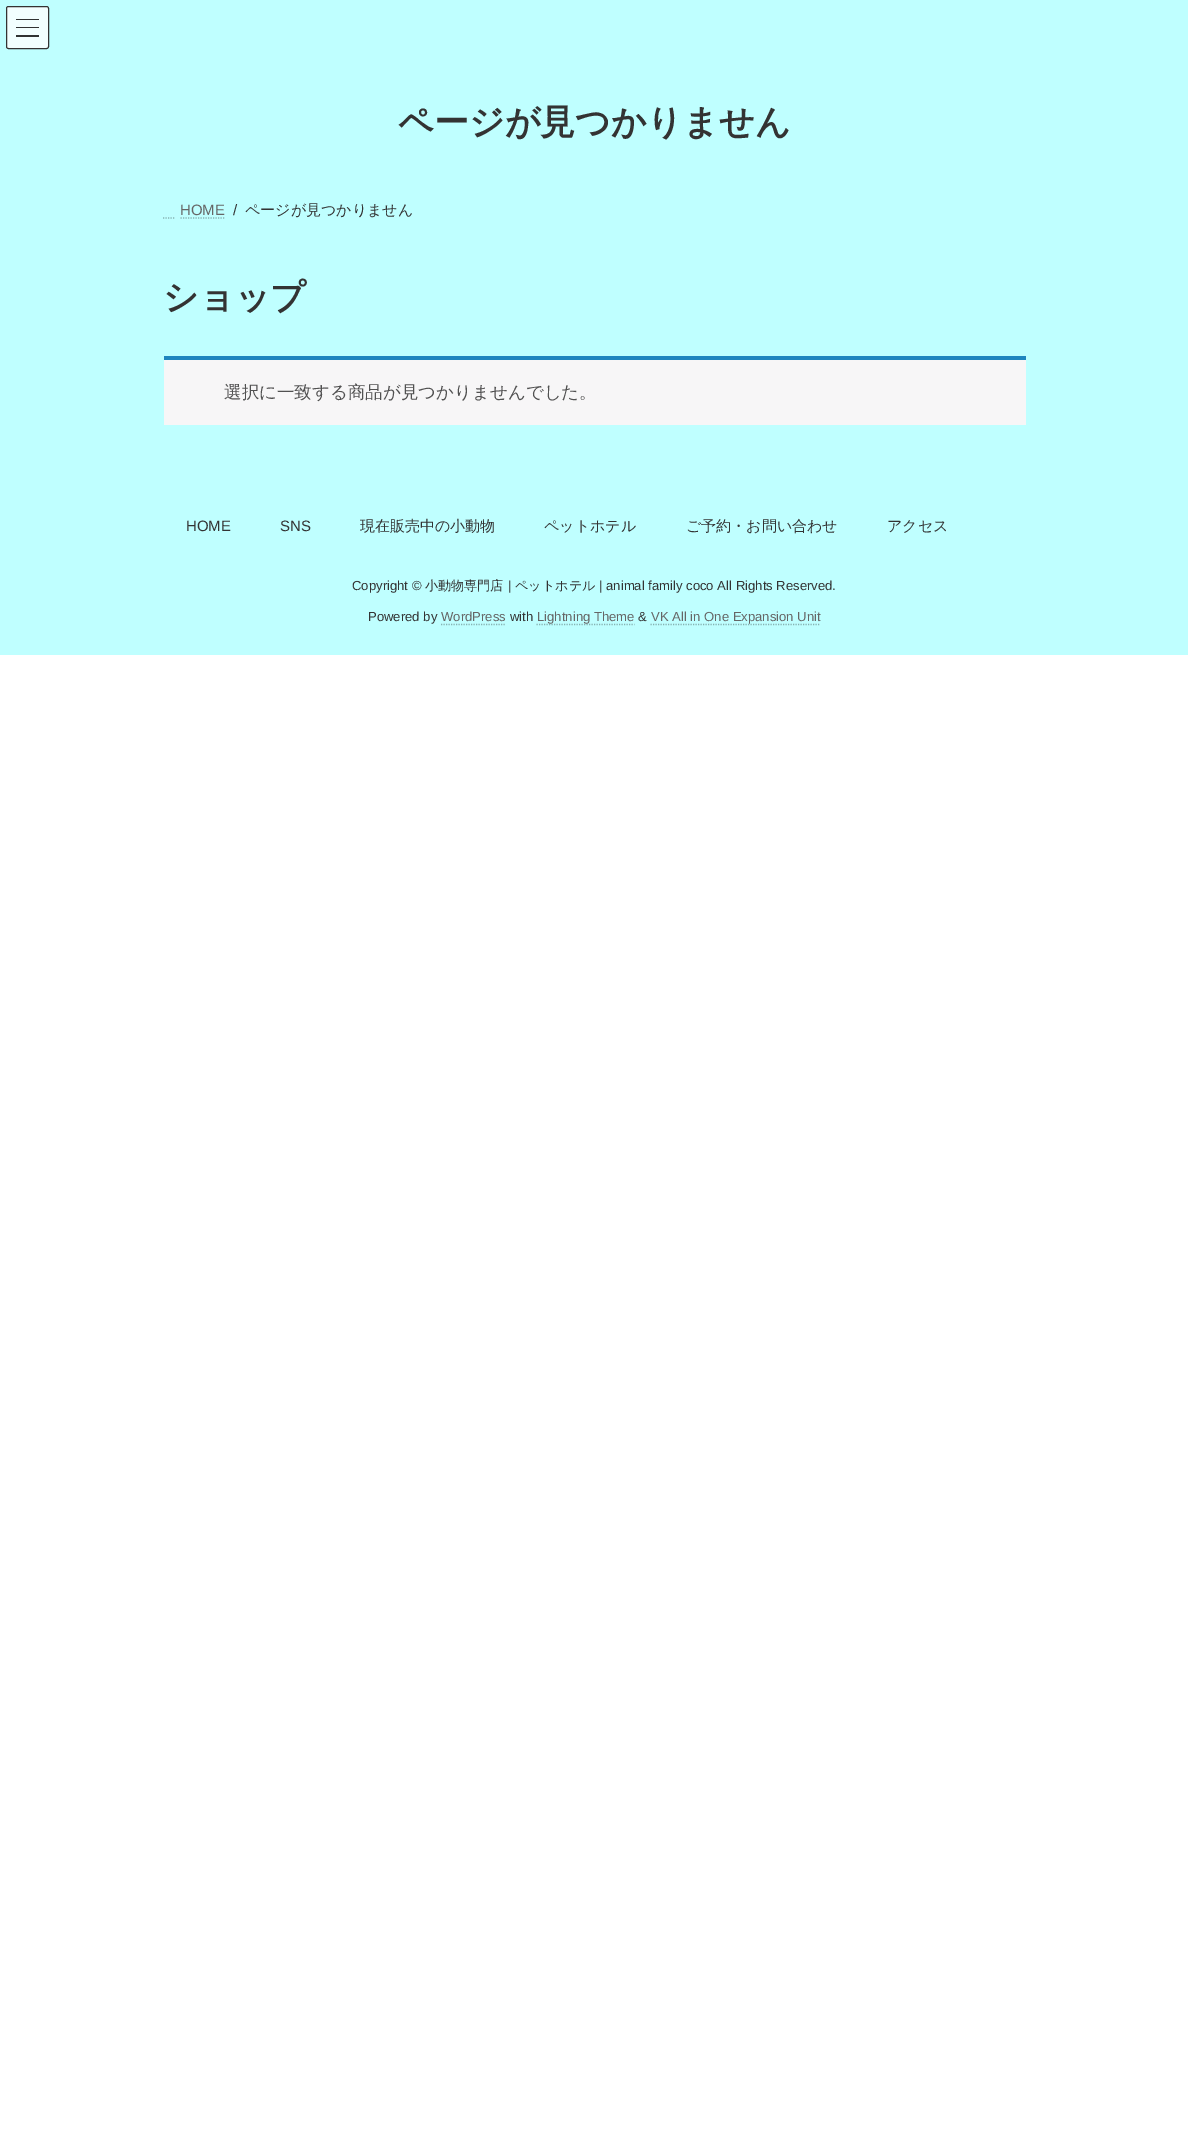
%!PS-Adobe-3.0
%%BoundingBox: 0 0 1188 2149
%%LanguageLevel: 3
%%Pages: 1
%%EndComments
%%BeginProlog
/setink { 3 { 255 div 3 1 roll } repeat setrgbcolor } def
/usefont { [ exch dup neg 0 0 3 -1 roll 0 0 ] selectfont } def
/drawtext { setink usefont moveto show } def
/fillbox { setink rectfill } def
/rrect { 5 dict begin { /r /h /w /y /x } { exch def } forall
  x r add y moveto x w add y 2 copy h add r arct x w add y h add x 1 index r arct
  x y h add x y r arct x y 2 copy exch w add exch r arct closepath end } def
%%EndProlog
%%BeginSetup
<< /PageSize [1188 2149] >> setpagedevice
%%EndSetup
%%Page: 1 1
0 2149 translate 1 -1 scale
4 setmiterlimit
0 0 1188 2149 255 255 255 fillbox
0 0 1188 655 191 255 255 fillbox
242 255 255 setink
6 6 43 43 2.5 rrect fill
16 19 23 1 48 51 51 fillbox
16 27 23 1 48 51 51 fillbox
16 35 23 2 48 51 51 fillbox
51 51 51 setink
6.5 6.5 42 42 2 rrect stroke
(ページが見つかりません) 398 134 /WenQuanYiZenHei-Bold 35 51 51 51 drawtext
(HOME) 180 215 /LiberationSans-Regular 15 102 102 102 drawtext
134 179 179 setink
1.2 setlinewidth
[1.25 1.25] 0 setdash
163 218 moveto 174.5 218 lineto 180.5 218 moveto 225.5 218 lineto stroke
(/) 233 215 /LiberationSans-Regular 15 51 51 51 drawtext
(ページが見つかりません) 245 215 /WenQuanYiZenHei-Medium 15 51 51 51 drawtext
(ショップ) 163 309 /WenQuanYiZenHei-Bold 35 51 51 51 drawtext
164 360 862 65 247 246 247 fillbox
164 356 862 4 30 133 190 fillbox
(選択に一致する商品が見つかりませんでした。) 224 398 /WenQuanYiZenHei-Medium 17.5 81 81 81 drawtext
(HOME) 186 531 /LiberationSans-Regular 15 51 51 51 drawtext
(SNS) 280 531 /LiberationSans-Regular 15 51 51 51 drawtext
(現在販売中の小動物) 360 531 /WenQuanYiZenHei-Medium 15 51 51 51 drawtext
(ペットホテル) 544 531 /WenQuanYiZenHei-Medium 15 51 51 51 drawtext
(ご予約・お問い合わせ) 686 531 /WenQuanYiZenHei-Medium 15 51 51 51 drawtext
(アクセス) 887 531 /WenQuanYiZenHei-Medium 15 51 51 51 drawtext
(Copyright ©) 352 590 /LiberationSans-Regular 13.1 51 51 51 drawtext
(小動物専門店) 425 590 /WenQuanYiZenHei-Medium 13.1 51 51 51 drawtext
(|) 508 590 /LiberationSans-Regular 13.1 51 51 51 drawtext
(ペットホテル) 515 590 /WenQuanYiZenHei-Medium 13.1 51 51 51 drawtext
(| animal family coco All Rights Reserved.) 599 590 /LiberationSans-Regular 13.1 51 51 51 drawtext
(Powered by) 368 621 /LiberationSans-Regular 13.1 51 51 51 drawtext
(WordPress) 441 621 /LiberationSans-Regular 13.1 102 102 102 drawtext
134 179 179 setink
441 624.5 moveto 506 624.5 lineto stroke
(with) 510 621 /LiberationSans-Regular 13.1 51 51 51 drawtext
134 179 179 setink
536.5 624.5 moveto 634.5 624.5 lineto stroke
(Lightning Theme) 537 621 /LiberationSans-Regular 13.1 102 102 102 drawtext
(&) 638 621 /LiberationSans-Regular 13.1 51 51 51 drawtext
134 179 179 setink
650.5 624.5 moveto 820.5 624.5 lineto stroke
(VK All in One Expansion Unit) 651 621 /LiberationSans-Regular 13.1 102 102 102 drawtext
showpage
%%EOF
